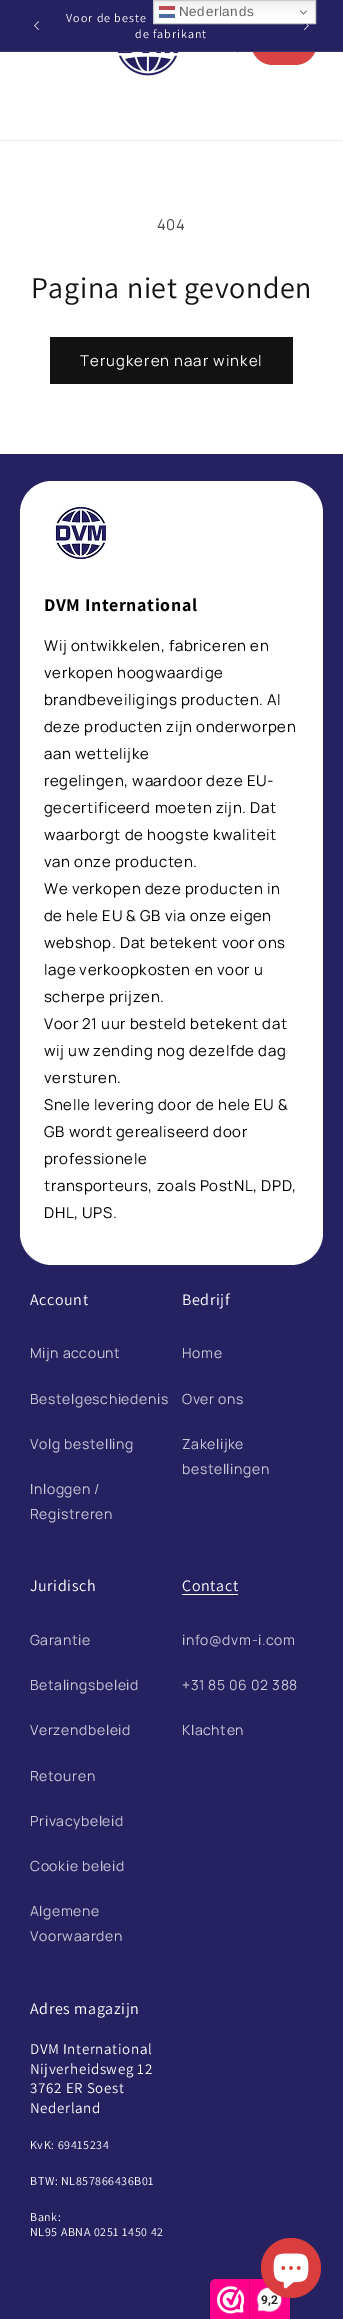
%!PS-Adobe-3.0
%%BoundingBox: 0 0 343 2319
%%LanguageLevel: 3
%%Pages: 1
%%EndComments
%%BeginProlog
/setink { 3 { 255 div 3 1 roll } repeat setrgbcolor } def
/usefont { [ exch dup neg 0 0 3 -1 roll 0 0 ] selectfont } def
/drawtext { setink usefont moveto show } def
/fillbox { setink rectfill } def
/setalpha { dup .setfillconstantalpha .setstrokeconstantalpha } def
/disc { newpath 0 360 arc closepath } def
/rrect { 5 dict begin { /r /h /w /y /x } { exch def } forall
  x r add y moveto x w add y 2 copy h add r arct x w add y h add x 1 index r arct
  x y h add x y r arct x y 2 copy exch w add exch r arct closepath end } def
/softshadow { 12 dict begin { /a /b /q /h /w /y /x } { exch def } forall gsave /was 0 def
  9 -2 -9 { dup b mul 4 div /e exch def 1 sub .425 mul 2.718 exch exp 1 add a .99 .min exch div /now exch def
    1 1 now sub 1 was sub div sub setalpha /was now def
    w h .min e 2 mul add 0 gt { x e sub y e sub w e 2 mul add h e 2 mul add
      q e add b .6 mul add w h .min 2 div e add .min 0 .max rrect fill } if } for grestore end } def
/drawimage { 5 dict begin { /h /w /y /x /name } { exch def } forall
  gsave x y translate w h scale
  w h 8 [w 0 0 h 0 0] name (r) file false 3 colorimage grestore end } def
%%EndProlog
%%BeginSetup
<< /PageSize [343 2319] /PageUsesTransparency true >> setpagedevice
%%EndSetup
%%Page: 1 1
0 .pushpdf14devicefilter
0 2319 translate 1 -1 scale
4 setmiterlimit
0 0 343 2319 255 255 255 fillbox
218 68 68 setink
251 21 66 44 22 rrect fill
0 0 343 51 38 34 98 fillbox
gsave 154 1 moveto 315 1 lineto 315 23 lineto 154 23 lineto closepath clip newpath
<< /ShadingType 2 /ColorSpace /DeviceRGB /Coords [235 0 235 24] /Extend [true true] /Function << /FunctionType 3 /Domain [0 1] /Functions [<< /FunctionType 2 /Domain [0 1] /C0 [0.937 0.937 0.937] /C1 [1 1 1] /N 1 >> << /FunctionType 2 /Domain [0 1] /C0 [1 1 1] /C1 [1 1 1] /N 1 >>] /Bounds [0.7] /Encode [0 1 0 1] >> >> shfill grestore
204 204 204 setink
153.5 0.5 162 23 rectstroke
159 6 16 4 190 73 83 fillbox
/LiberationSans-Regular 13.5 usefont
102 102 102 setink
179 16 moveto 0.6 0 (Nederlands) ashow
0.8 setalpha
159 10 16 3 255 255 255 fillbox
1 setalpha
(assets/img1.rgb) 300 10 7 5 drawimage
159 14 16 4 77 107 162 fillbox
0 51 343 1 55 52 111 fillbox
(assets/img2.rgb) 34 21 5 9 drawimage
/Assistant-Regular 12 usefont
255 255 255 setink
66 22 moveto 1 0 (Voor de beste) ashow
135 38 moveto 1 0 (de fabrikant) ashow
(assets/img3.rgb) 304 24 5 6 drawimage
0 140 343 1 236 236 236 fillbox
(assets/img4.rgb) 117 52 62 24 drawimage
(assets/img5.rgb) 237 52 1 1 drawimage
/Manrope-Regular 15 usefont
77 77 77 setink
157 230 moveto 0.6 0 (404) ashow
/Assistant-Regular 30 usefont
18 18 18 setink
31 298 moveto 0.6 0 (Pagina niet gevonden) ashow
50 337 243 47 18 18 18 fillbox
/Manrope-Regular 15 usefont
255 255 255 setink
80 366 moveto 1 0 (Terugkeren naar winkel) ashow
0 454 343 1865 38 34 98 fillbox
255 255 255 setink
20 481 303 784 32 rrect fill
(assets/img6.rgb) 54 505 54 56 drawimage
/Assistant-Bold 18 usefont
0 0 0 setink
44 611 moveto 0.6 0 (DVM International) ashow
/Manrope-Regular 15 usefont
44 651 moveto 0.6 0 (Wij ontwikkelen, fabriceren en) ashow
44 678 moveto 0.6 0 (verkopen hoogwaardige) ashow
44 705 moveto 0.6 0 (brandbeveiligings producten. Al) ashow
44 732 moveto 0.6 0 (deze producten zijn onderworpen) ashow
44 759 moveto 0.6 0 (aan wettelijke) ashow
44 786 moveto 0.6 0 (regelingen, waardoor deze EU-) ashow
44 813 moveto 0.6 0 (gecertificeerd moeten zijn. Dat) ashow
44 840 moveto 0.6 0 (waarborgt de hoogste kwaliteit) ashow
44 867 moveto 0.6 0 (van onze producten.) ashow
44 894 moveto 0.6 0 (We verkopen deze producten in) ashow
44 921 moveto 0.6 0 (de hele EU & GB via onze eigen) ashow
44 948 moveto 0.6 0 (webshop. Dat betekent voor ons) ashow
44 975 moveto 0.6 0 (lage verkoopkosten en voor u) ashow
44 1002 moveto 0.6 0 (scherpe prijzen.) ashow
44 1029 moveto 0.6 0 (Voor 21 uur besteld betekent dat) ashow
44 1056 moveto 0.6 0 (wij uw zending nog dezelfde dag) ashow
44 1083 moveto 0.6 0 (versturen.) ashow
44 1110 moveto 0.6 0 (Snelle levering door de hele EU &) ashow
44 1137 moveto 0.6 0 (GB wordt gerealiseerd door) ashow
44 1164 moveto 0.6 0 (professionele) ashow
44 1191 moveto 0.6 0 (transporteurs, zoals PostNL, DPD,) ashow
44 1218 moveto 0.6 0 (DHL, UPS.) ashow
/Assistant-Regular 16 usefont
255 255 255 setink
30 1305 moveto 0.6 0 (Account) ashow
/Manrope-Regular 14 usefont
201 200 216 setink
30 1358 moveto 0.6 0 (Mijn account) ashow
30 1404 moveto 0.6 0 (Bestelgeschiedenis) ashow
30 1449 moveto 0.6 0 (Volg bestelling) ashow
30 1494 moveto 0.6 0 (Inloggen /) ashow
30 1519 moveto 0.6 0 (Registreren) ashow
/Assistant-Regular 16 usefont
255 255 255 setink
182 1305 moveto 0.6 0 (Bedrijf) ashow
/Manrope-Regular 14 usefont
201 200 216 setink
182 1358 moveto 0.6 0 (Home) ashow
182 1404 moveto 0.6 0 (Over ons) ashow
182 1449 moveto 0.6 0 (Zakelijke) ashow
182 1474 moveto 0.6 0 (bestellingen) ashow
/Assistant-Regular 16 usefont
255 255 255 setink
30 1591 moveto 0.6 0 (Juridisch) ashow
/Manrope-Regular 14 usefont
201 200 216 setink
30 1645 moveto 0.6 0 (Garantie) ashow
30 1690 moveto 0.6 0 (Betalingsbeleid) ashow
30 1735 moveto 0.6 0 (Verzendbeleid) ashow
30 1781 moveto 0.6 0 (Retouren) ashow
30 1826 moveto 0.6 0 (Privacybeleid) ashow
30 1871 moveto 0.6 0 (Cookie beleid) ashow
30 1916 moveto 0.6 0 (Algemene) ashow
30 1941 moveto 0.6 0 (Voorwaarden) ashow
/Assistant-Regular 16 usefont
255 255 255 setink
182 1591 moveto 0.6 0 (Contact) ashow
182 1594 56 1 255 255 255 fillbox
/Manrope-Regular 14 usefont
201 200 216 setink
182 1645 moveto 0.6 0 (info@dvm-i.com) ashow
182 1690 moveto 0.6 0 (+31 85 06 02 388) ashow
182 1735 moveto 0.6 0 (Klachten) ashow
/Assistant-Regular 16 usefont
255 255 255 setink
30 2014 moveto 0.6 0 (Adres magazijn) ashow
/Assistant-Regular 15 usefont
30 2054 moveto 0.6 0 (DVM International) ashow
30 2074 moveto 0.6 0 (Nijverheidsweg 12) ashow
30 2093 moveto 0.6 0 (3762 ER Soest) ashow
30 2113 moveto 0.6 0 (Nederland) ashow
/Assistant-Regular 12 usefont
30 2149 moveto 0.6 0 (KvK: 69415234) ashow
30 2185 moveto 0.6 0 (BTW: NL857866436B01) ashow
30 2221 moveto 0.6 0 (Bank:) ashow
30 2236 moveto 0.6 0 (NL95 ABNA 0251 1450 42) ashow
0 0 0 setink
210 2281 80 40 6 5 0.15 softshadow
254 0 140 setink
216 2279 moveto 284 2279 lineto 287.5 2279 290 2281.5 290 2285 curveto 290 2319 lineto 210 2319 lineto 210 2285 lineto 210 2281.5 212.5 2279 216 2279 curveto closepath fill
(assets/img9.rgb) 256 2287 26 26 drawimage
(9,2) 261 2304 /Roboto-Bold 12 39 38 38 drawtext
217 61 61 setink
291 2268 30 disc fill
(assets/img7.rgb) 273 2253 36 36 drawimage
(assets/img8.rgb) 217 2286 27 28 drawimage
249 2280 1 39 216 0 119 fillbox
.poppdf14devicefilter showpage
%%EOF
